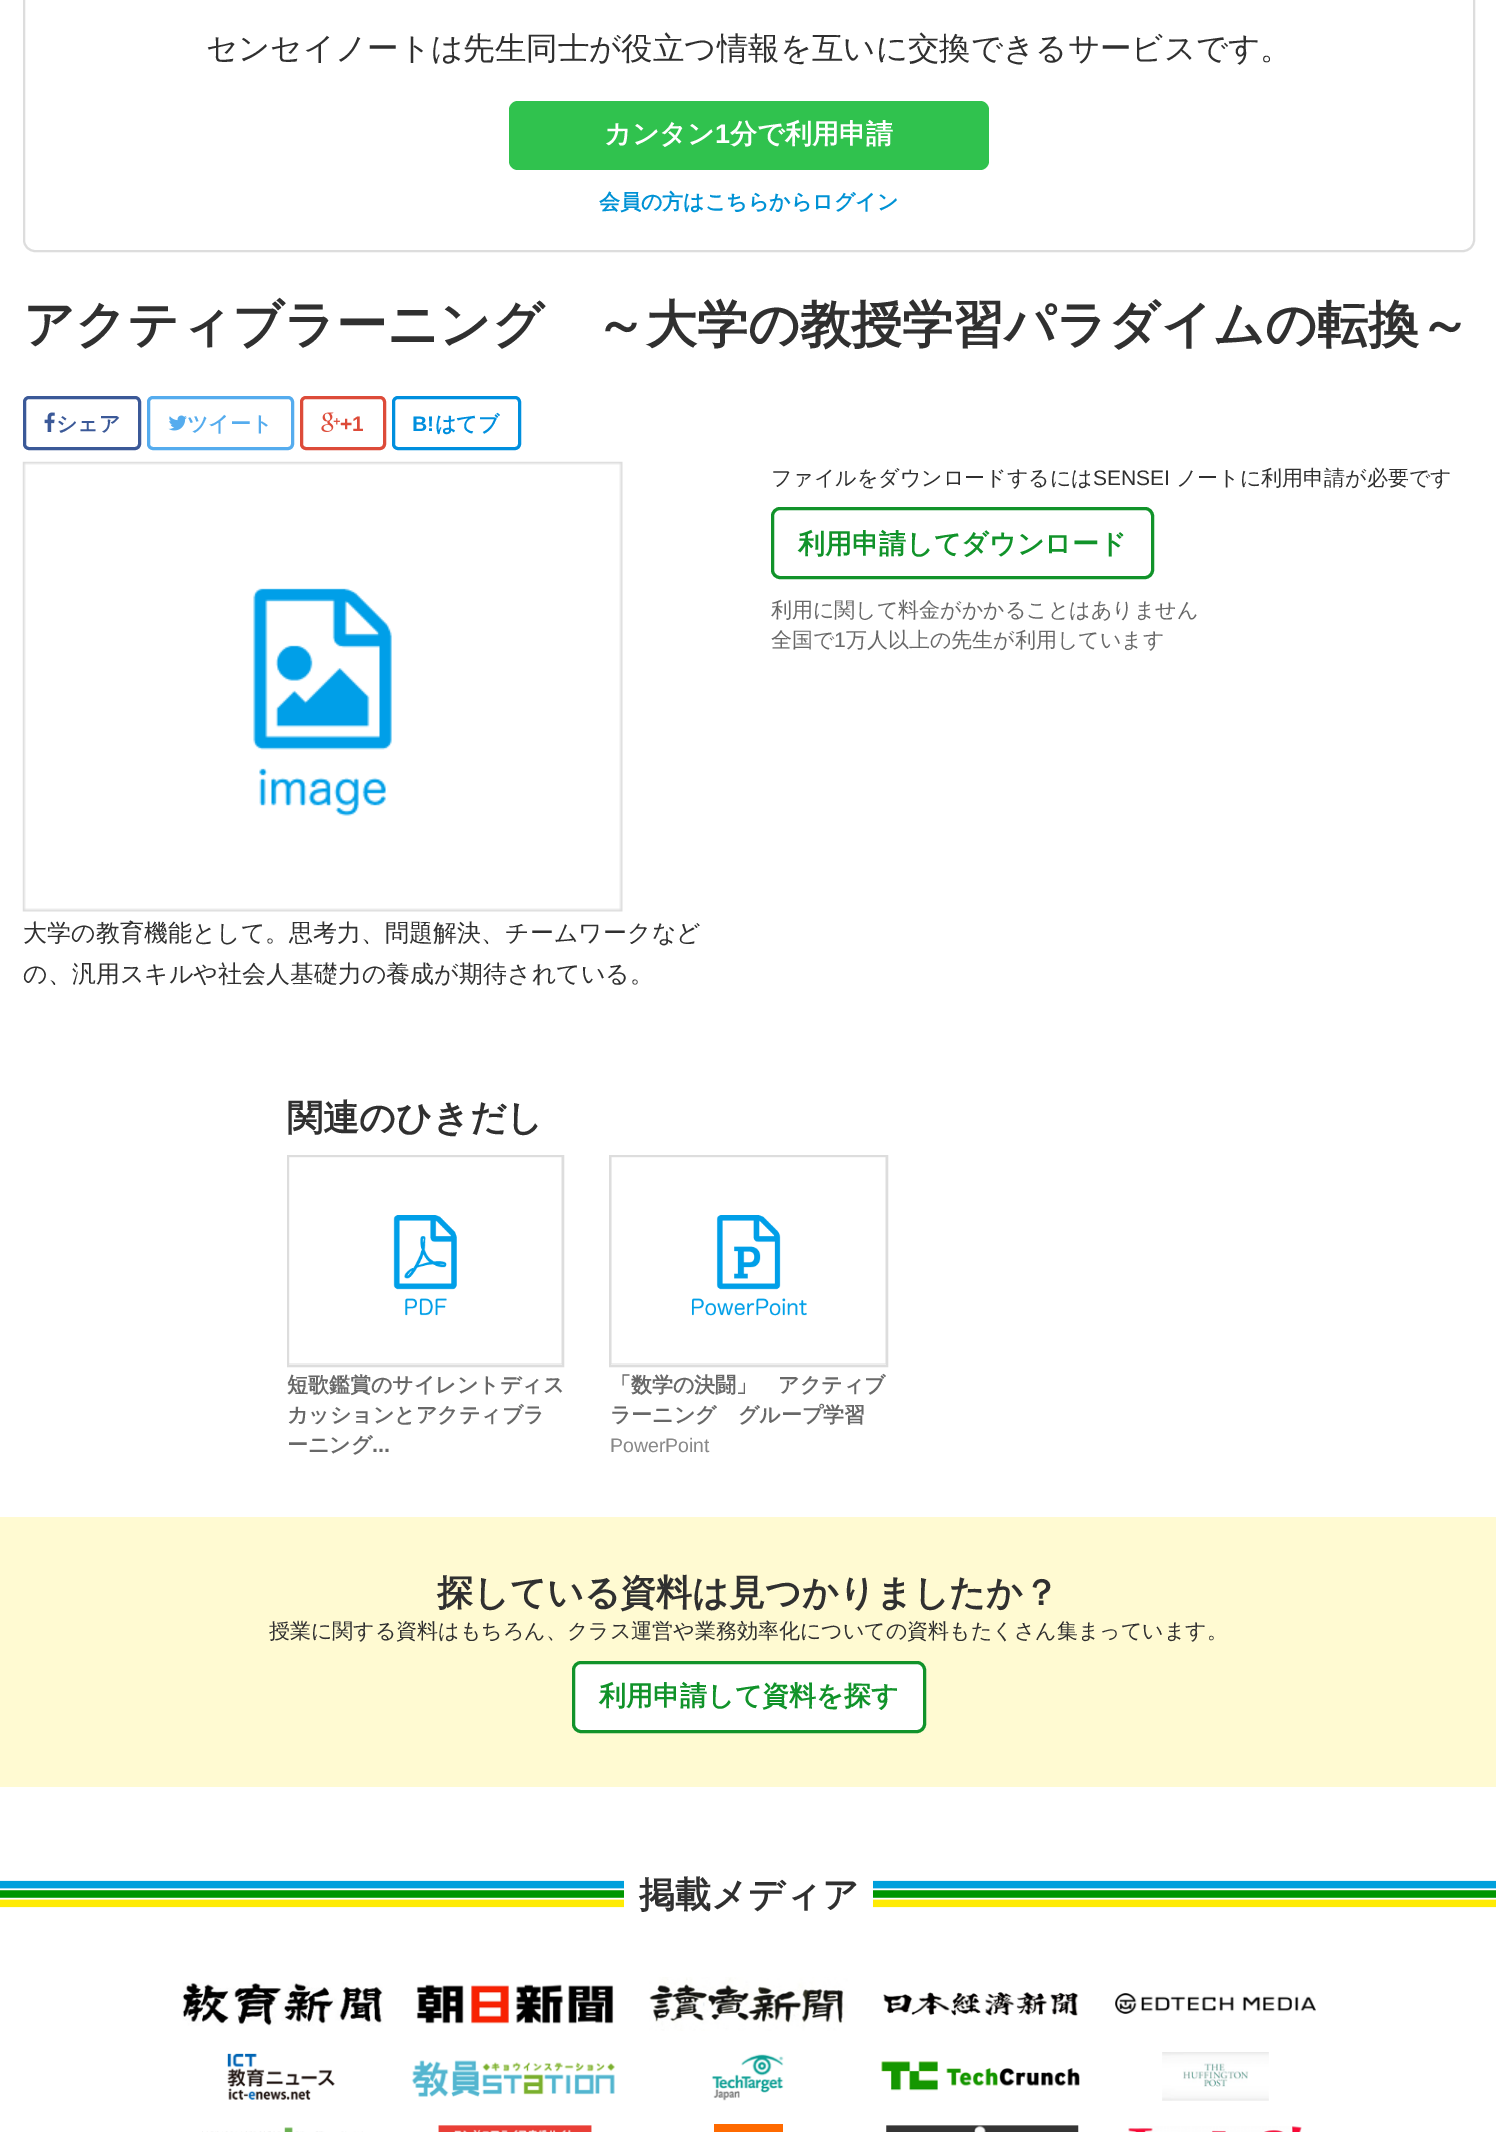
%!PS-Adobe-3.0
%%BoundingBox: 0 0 1496 2132
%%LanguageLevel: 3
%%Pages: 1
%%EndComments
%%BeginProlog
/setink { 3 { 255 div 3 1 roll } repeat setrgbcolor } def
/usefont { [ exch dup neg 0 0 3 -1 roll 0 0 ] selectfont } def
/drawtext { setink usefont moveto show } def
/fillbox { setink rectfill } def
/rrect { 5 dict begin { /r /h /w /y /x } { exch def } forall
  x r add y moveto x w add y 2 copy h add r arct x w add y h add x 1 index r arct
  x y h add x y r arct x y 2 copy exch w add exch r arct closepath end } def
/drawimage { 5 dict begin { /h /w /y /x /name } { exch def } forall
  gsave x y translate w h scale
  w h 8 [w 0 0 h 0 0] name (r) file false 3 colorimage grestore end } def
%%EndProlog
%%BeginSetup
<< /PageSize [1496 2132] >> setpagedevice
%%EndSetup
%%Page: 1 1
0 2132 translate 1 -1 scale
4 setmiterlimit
0 0 1496 2132 255 255 255 fillbox
221 221 221 setink
2 setlinewidth
24 -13 1450 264 11 rrect stroke
(センセイノートは先生同士が役立つ情報を互いに交換できるサービスです。) 206 59 /WenQuanYiZenHei-Medium 31.5 48 48 48 drawtext
48 194 78 setink
509 101 480 69 9 rrect fill
(カンタン) 604 143 /WenQuanYiZenHei-Bold 27 255 255 255 drawtext
(1) 715 143 /LiberationSans-Bold 27 255 255 255 drawtext
(分で利用申請) 730 143 /WenQuanYiZenHei-Bold 27 255 255 255 drawtext
(会員の方はこちらからログイン) 599 209 /WenQuanYiZenHei-Bold 21 0 146 213 drawtext
(アクティブラーニング　～大学の教授学習パラダイムの転換～) 23 342 /WenQuanYiZenHei-Bold 51 48 48 48 drawtext
59 89 152 setink
3 setlinewidth
24.5 397.5 115 51 4.5 rrect stroke
(assets/img1.rgb) 44 412 11 20 drawimage
(シェア) 56 431 /WenQuanYiZenHei-Bold 21 59 89 152 drawtext
85 172 238 setink
148.5 397.5 144 51 4.5 rrect stroke
(assets/img2.rgb) 168 415 19 16 drawimage
(ツイート) 187 431 /WenQuanYiZenHei-Bold 21 85 172 238 drawtext
221 75 57 setink
301.5 397.5 83 51 4.5 rrect stroke
(assets/img3.rgb) 321 412 19 20 drawimage
(+1) 340 431 /LiberationSans-Bold 21 221 75 57 drawtext
0 143 222 setink
393.5 397.5 126 51 4.5 rrect stroke
(B!) 412 431 /LiberationSans-Bold 21 0 143 222 drawtext
(はてブ) 435 431 /WenQuanYiZenHei-Bold 21 0 143 222 drawtext
(ファイルをダウンロードするには) 771 485 /WenQuanYiZenHei-Medium 21 48 48 48 drawtext
(SENSEI) 1093 485 /LiberationSans-Regular 21 48 48 48 drawtext
(ノートに利用申請が必要です) 1176 485 /WenQuanYiZenHei-Medium 21 48 48 48 drawtext
17 147 42 setink
772.5 508.5 380 69 7.5 rrect stroke
(利用申請してダウンロード) 798 553 /WenQuanYiZenHei-Bold 27 17 147 42 drawtext
(利用に関して料金がかかることはありません) 771 617 /WenQuanYiZenHei-Medium 21 104 104 104 drawtext
(全国で) 771 647 /WenQuanYiZenHei-Medium 21 104 104 104 drawtext
(1) 834 647 /LiberationSans-Regular 21 104 104 104 drawtext
(万人以上の先生が利用しています) 846 647 /WenQuanYiZenHei-Medium 21 104 104 104 drawtext
(assets/img4.rgb) 22 461 601 451 drawimage
(大学の教育機能として。思考力、問題解決、チームワークなど) 23 941 /WenQuanYiZenHei-Medium 24 48 48 48 drawtext
(の、汎用スキルや社会人基礎力の養成が期待されている。) 23 982 /WenQuanYiZenHei-Medium 24 48 48 48 drawtext
(関連のひきだし) 287 1130 /WenQuanYiZenHei-Bold 36 48 48 48 drawtext
221 221 221 setink
2 setlinewidth
288 1156 275 210 rectstroke
(assets/img5.rgb) 289 1157 273 208 drawimage
(短歌鑑賞のサイレントディス) 287 1392 /WenQuanYiZenHei-Bold 21 104 104 104 drawtext
(カッションとアクティブラ) 287 1422 /WenQuanYiZenHei-Bold 21 104 104 104 drawtext
(ーニング) 287 1452 /WenQuanYiZenHei-Bold 21 104 104 104 drawtext
(...) 372 1452 /LiberationSans-Bold 21 104 104 104 drawtext
221 221 221 setink
610 1156 277 210 rectstroke
(assets/img6.rgb) 611 1157 275 208 drawimage
(「数学の決闘」　アクティブ) 610 1392 /WenQuanYiZenHei-Bold 21 104 104 104 drawtext
(ラーニング　グループ学習) 610 1422 /WenQuanYiZenHei-Bold 21 104 104 104 drawtext
(PowerPoint) 610 1452 /LiberationSans-Regular 19.5 136 136 136 drawtext
0 1517 1496 270 255 250 210 fillbox
(探している資料は見つかりましたか？) 437 1605 /WenQuanYiZenHei-Bold 36 48 48 48 drawtext
(授業に関する資料はもちろん、クラス運営や業務効率化についての資料もたくさん集まっています。) 269 1638 /WenQuanYiZenHei-Medium 21 48 48 48 drawtext
255 255 255 setink
573.5 1662.5 351 69 7.5 rrect gsave fill grestore
17 147 42 setink
3 setlinewidth
stroke
(利用申請して資料を探す) 599 1705 /WenQuanYiZenHei-Bold 27 17 147 42 drawtext
(assets/img7.rgb) 0 1880 1496 28 drawimage
624 1880 249 28 255 255 255 fillbox
(掲載メディア) 639 1907 /WenQuanYiZenHei-Bold 36 48 48 48 drawtext
(assets/img8.rgb) 182 1982 201 44 drawimage
(assets/img9.rgb) 416 1984 198 40 drawimage
(assets/img10.rgb) 649 1977 199 54 drawimage
(assets/img11.rgb) 883 1992 196 24 drawimage
(assets/img12.rgb) 1115 1993 201 21 drawimage
(assets/img13.rgb) 227 2053 108 47 drawimage
(assets/img14.rgb) 411 2060 204 37 drawimage
(assets/img15.rgb) 711 2054 73 47 drawimage
(assets/img16.rgb) 881 2061 199 30 drawimage
(assets/img17.rgb) 1162 2052 107 49 drawimage
(assets/img18.rgb) 202 2127 161 5 drawimage
(assets/img19.rgb) 438 2125 154 7 drawimage
714 2124 69 8 255 106 0 fillbox
(assets/img20.rgb) 886 2125 193 7 drawimage
(assets/img21.rgb) 1128 2126 174 6 drawimage
showpage
%%EOF
